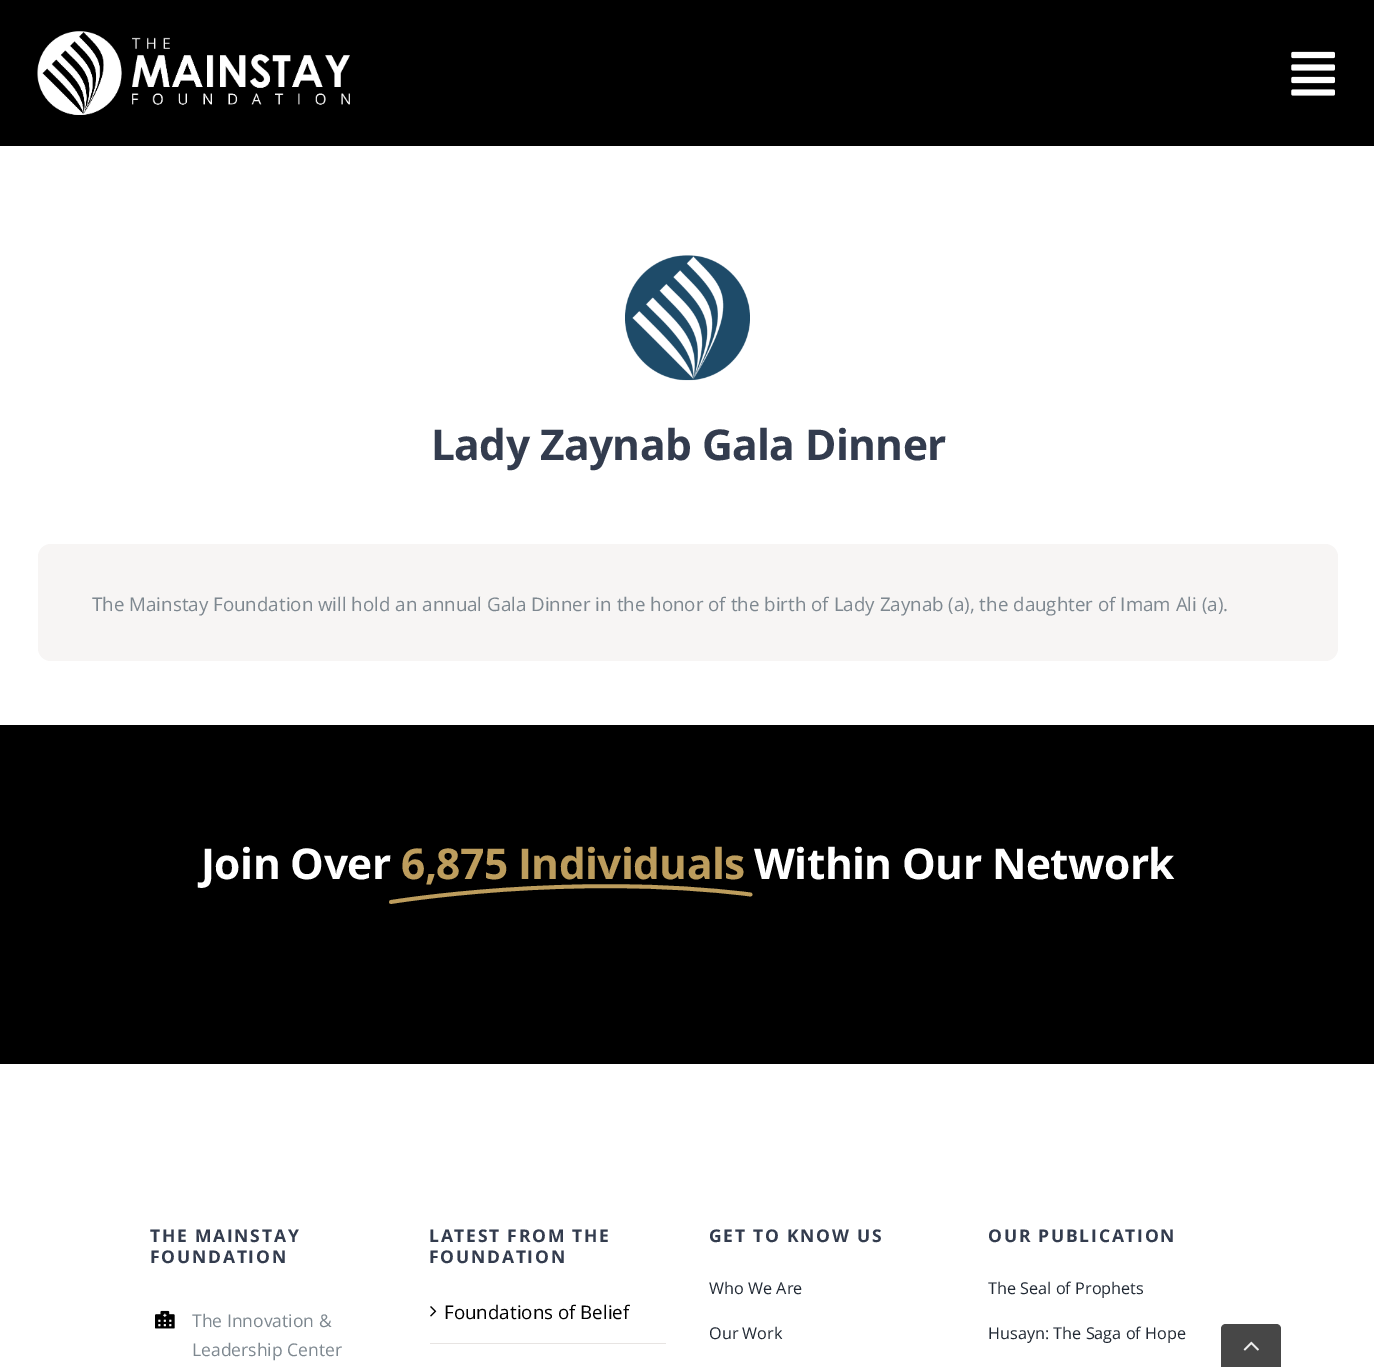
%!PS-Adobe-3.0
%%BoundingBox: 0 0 1374 1367
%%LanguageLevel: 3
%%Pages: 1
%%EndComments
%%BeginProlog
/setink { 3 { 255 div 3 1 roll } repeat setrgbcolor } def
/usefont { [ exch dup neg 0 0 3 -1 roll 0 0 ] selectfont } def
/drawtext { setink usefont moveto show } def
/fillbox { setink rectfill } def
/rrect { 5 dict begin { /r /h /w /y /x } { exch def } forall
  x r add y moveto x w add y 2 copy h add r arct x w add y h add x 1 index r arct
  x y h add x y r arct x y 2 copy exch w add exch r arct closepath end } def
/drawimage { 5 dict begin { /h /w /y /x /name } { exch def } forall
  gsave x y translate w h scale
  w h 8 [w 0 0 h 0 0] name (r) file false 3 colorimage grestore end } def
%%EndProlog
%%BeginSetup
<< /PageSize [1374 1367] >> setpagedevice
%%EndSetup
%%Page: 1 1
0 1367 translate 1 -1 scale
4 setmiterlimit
0 0 1374 1367 255 255 255 fillbox
0 0 1374 146 0 0 0 fillbox
(assets/img1.rgb) 37 31 313 84 drawimage
(assets/img2.rgb) 1291 51 44 45 drawimage
(assets/img3.rgb) 625 255 125 126 drawimage
/OpenSans-Bold 42.5 usefont
51 60 78 setink
431 460 moveto -0.6 0 (Lady Zaynab Gala Dinner) ashow
247 245 244 setink
38 544 1300 117 13 rrect fill
(The Mainstay Foundation will hold an annual Gala Dinner in the honor of the birth of Lady Zaynab \(a\), the daughter of Imam Ali \(a\).) 92 611 /OpenSans-Regular 18.75 126 136 144 drawtext
0 725 1374 339 0 0 0 fillbox
/OpenSans-Bold 42.5 usefont
255 255 255 setink
201 879 moveto -0.6 0 (Join Over) ashow
189 157 93 setink
401 879 moveto -0.6 0 (6,875 Individuals) ashow
3.8 setlinewidth
1 setlinecap
1 setlinejoin
391 902 moveto 391 902 571.5 872 750.5 894.5 curveto stroke
255 255 255 setink
754 879 moveto -0.6 0 (Within Our Network) ashow
/OpenSans-Bold 17.5 usefont
51 60 78 setink
150 1242 moveto 1.75 0 (THE MAINSTAY) ashow
150 1263 moveto 1.75 0 (FOUNDATION) ashow
(assets/img4.rgb) 155 1310 20 19 drawimage
(The Innovation &) 192 1327 /OpenSans-Regular 17.5 126 136 144 drawtext
(Leadership Center) 192 1356 /OpenSans-Regular 17.5 126 136 144 drawtext
/OpenSans-Bold 17.5 usefont
51 60 78 setink
429 1242 moveto 1.75 0 (LATEST FROM THE) ashow
429 1263 moveto 1.75 0 (FOUNDATION) ashow
430 1343 236 1 231 228 226 fillbox
(assets/img5.rgb) 430 1306 7 11 drawimage
(Foundations of Belief) 444 1319 /OpenSans-Regular 18.75 0 0 0 drawtext
/OpenSans-Bold 17.5 usefont
51 60 78 setink
709 1242 moveto 1.75 0 (GET TO KNOW US) ashow
(Who We Are) 709 1294 /OpenSans-Regular 16.25 33 41 52 drawtext
(Our Work) 709 1339 /OpenSans-Regular 16.25 33 41 52 drawtext
/OpenSans-Bold 17.5 usefont
51 60 78 setink
988 1242 moveto 1.75 0 (OUR PUBLICATION) ashow
(The Seal of Prophets) 988 1294 /OpenSans-Regular 16.25 33 41 52 drawtext
(Husayn: The Saga of Hope) 988 1339 /OpenSans-Regular 16.25 33 41 52 drawtext
71 71 71 setink
1226 1324 moveto 1276 1324 lineto 1279 1324 1281 1326 1281 1329 curveto 1281 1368 lineto 1221 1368 lineto 1221 1329 lineto 1221 1326 1223 1324 1226 1324 curveto closepath fill
(assets/img6.rgb) 1243 1341 16 10 drawimage
showpage
%%EOF
